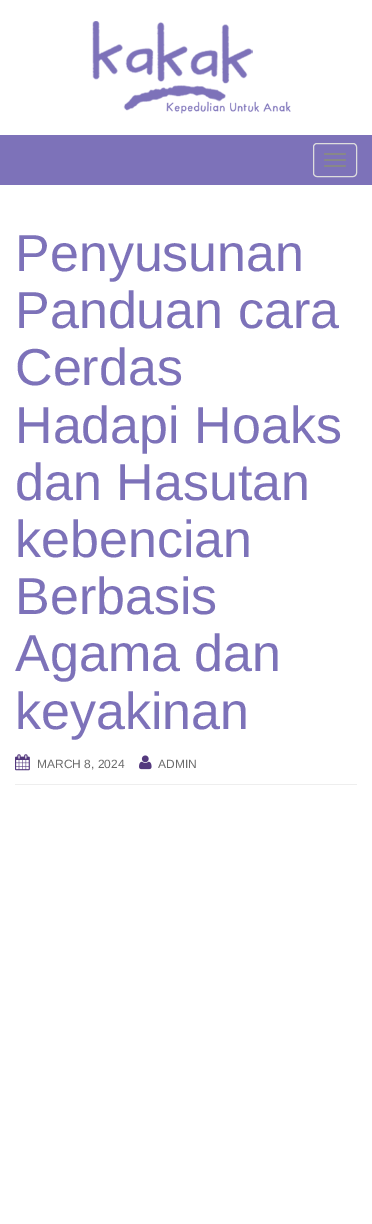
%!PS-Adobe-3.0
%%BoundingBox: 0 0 372 1224
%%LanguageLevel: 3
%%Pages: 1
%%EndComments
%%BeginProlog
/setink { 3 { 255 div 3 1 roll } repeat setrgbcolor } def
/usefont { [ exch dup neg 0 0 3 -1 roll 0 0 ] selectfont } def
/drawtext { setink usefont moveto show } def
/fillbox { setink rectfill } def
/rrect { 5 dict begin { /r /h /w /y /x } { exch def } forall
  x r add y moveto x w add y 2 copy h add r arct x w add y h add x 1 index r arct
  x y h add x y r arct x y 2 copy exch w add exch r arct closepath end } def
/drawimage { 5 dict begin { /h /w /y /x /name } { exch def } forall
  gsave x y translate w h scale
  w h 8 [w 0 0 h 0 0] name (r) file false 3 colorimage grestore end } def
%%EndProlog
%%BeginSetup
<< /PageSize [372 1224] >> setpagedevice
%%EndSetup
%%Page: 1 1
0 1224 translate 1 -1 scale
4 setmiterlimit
0 0 372 1224 255 255 255 fillbox
(assets/img1.rgb) 92 21 199 93 drawimage
0 135 372 50 125 114 185 fillbox
221 221 221 setink
313.5 143.5 43 33 3.5 rrect stroke
136 136 136 setink
324 153 22 2 1 rrect fill
324 159 22 2 1 rrect fill
324 165 22 2 1 rrect fill
15 784 342 1 238 238 238 fillbox
(Penyusunan) 15 271 /LiberationSans-Regular 52 125 114 185 drawtext
(Panduan cara) 15 328 /LiberationSans-Regular 52 125 114 185 drawtext
(Cerdas) 15 385 /LiberationSans-Regular 52 125 114 185 drawtext
(Hadapi Hoaks) 15 443 /LiberationSans-Regular 52 125 114 185 drawtext
(dan Hasutan) 15 500 /LiberationSans-Regular 52 125 114 185 drawtext
(kebencian) 15 557 /LiberationSans-Regular 52 125 114 185 drawtext
(Berbasis) 15 614 /LiberationSans-Regular 52 125 114 185 drawtext
(Agama dan) 15 671 /LiberationSans-Regular 52 125 114 185 drawtext
(keyakinan) 15 729 /LiberationSans-Regular 52 125 114 185 drawtext
(assets/img2.rgb) 15 754 15 17 drawimage
(MARCH 8, 2024) 37 768 /LiberationSans-Regular 12 107 107 107 drawtext
(assets/img3.rgb) 139 755 13 15 drawimage
(ADMIN) 158 768 /LiberationSans-Regular 12 107 107 107 drawtext
showpage
%%EOF
